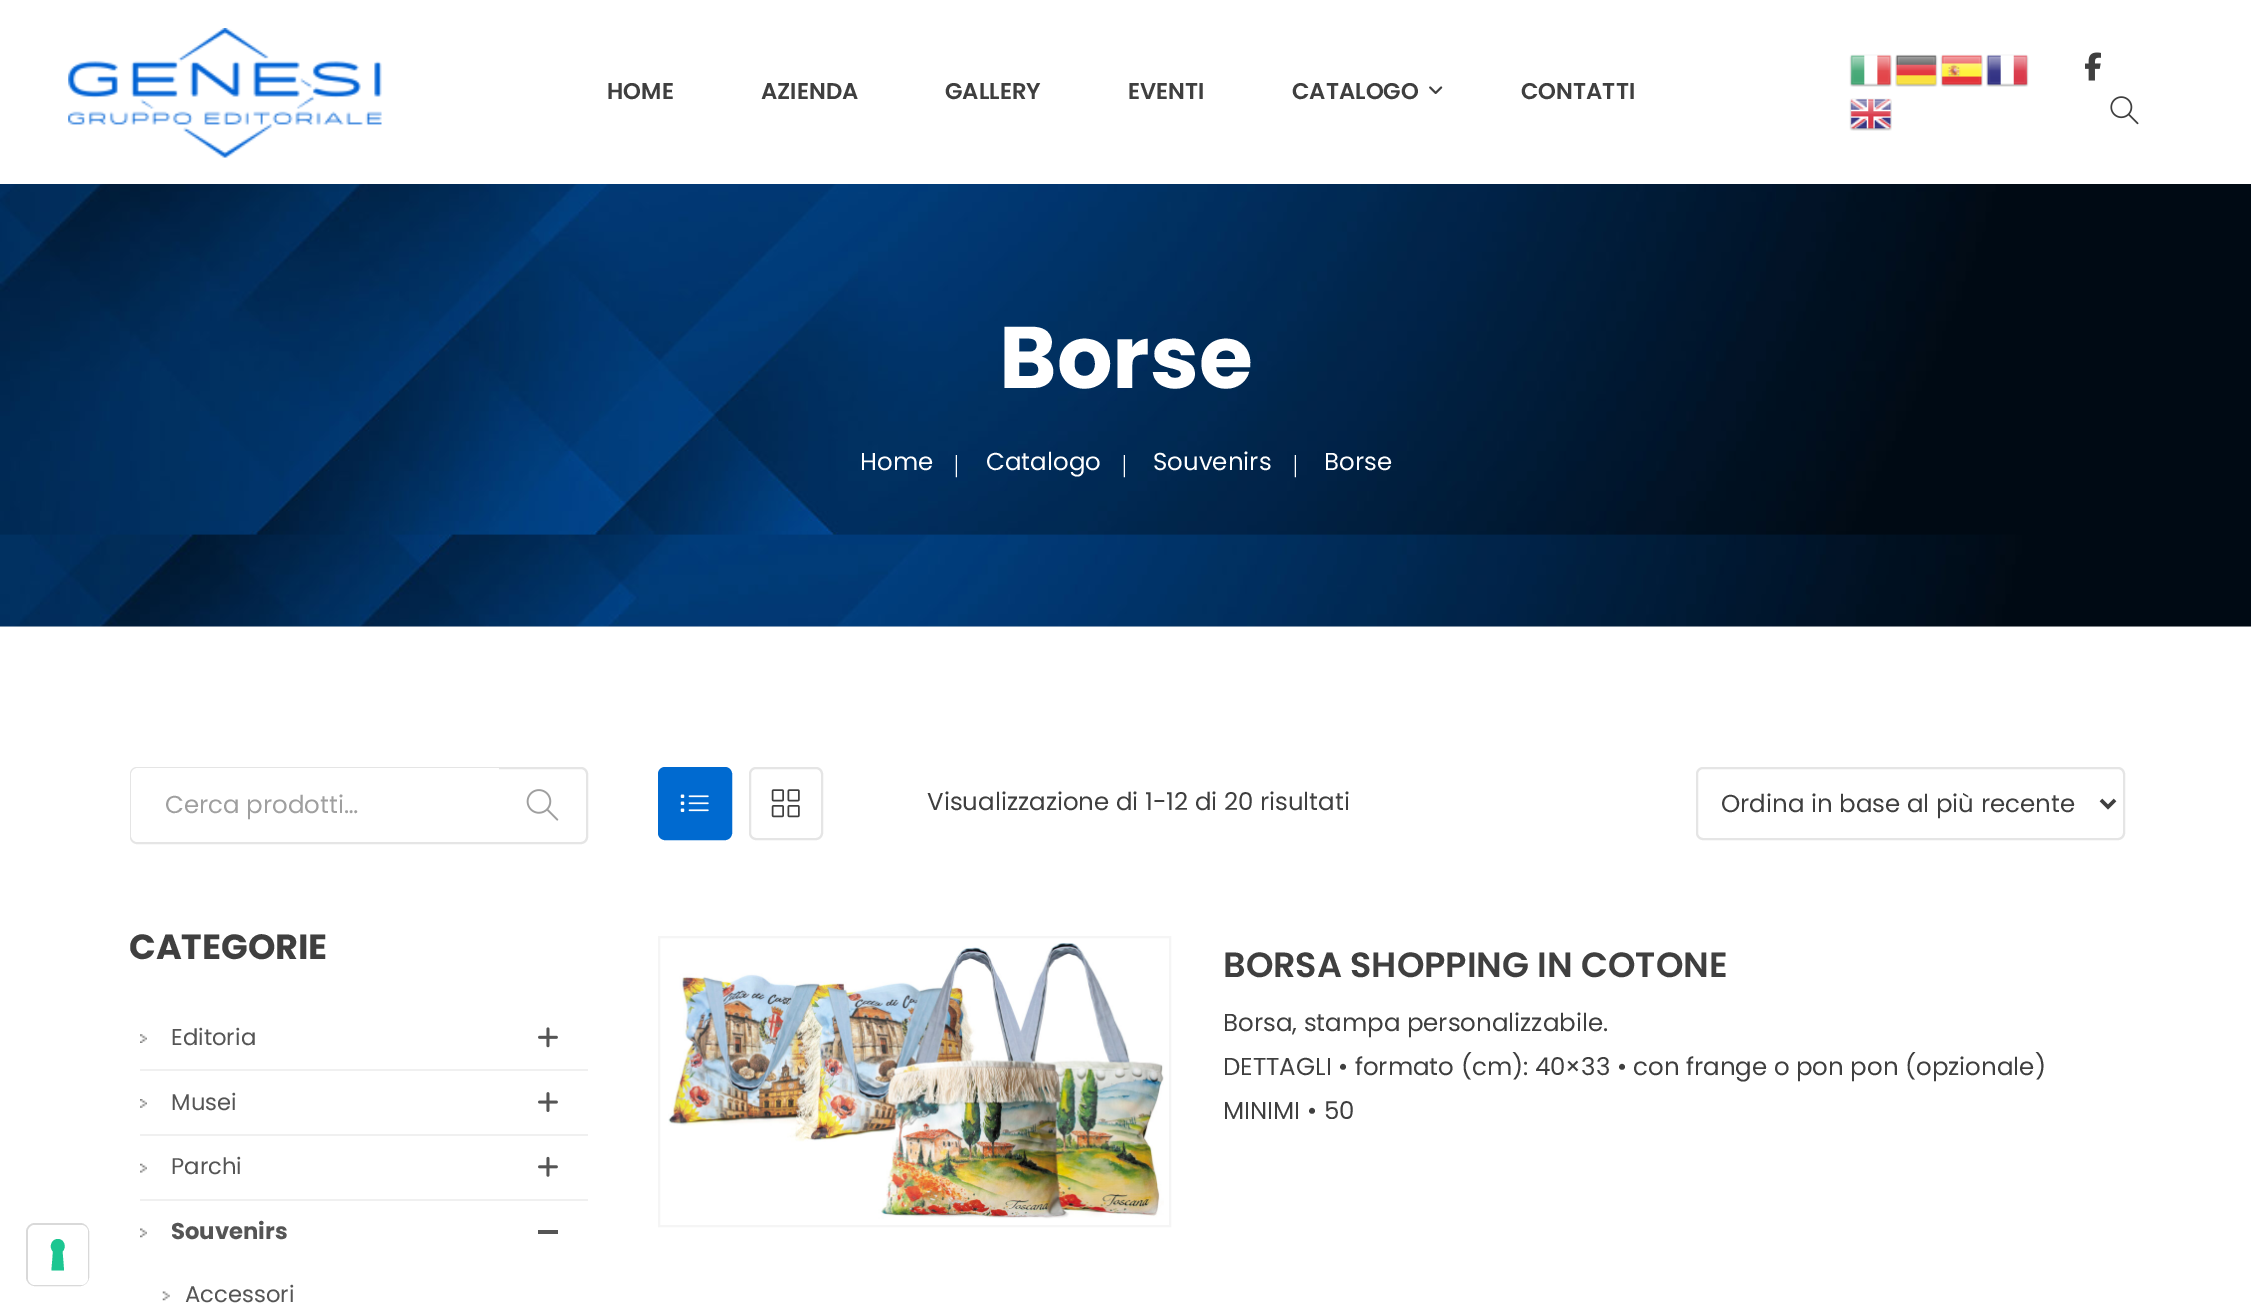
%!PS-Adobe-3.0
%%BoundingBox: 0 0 2251 1312
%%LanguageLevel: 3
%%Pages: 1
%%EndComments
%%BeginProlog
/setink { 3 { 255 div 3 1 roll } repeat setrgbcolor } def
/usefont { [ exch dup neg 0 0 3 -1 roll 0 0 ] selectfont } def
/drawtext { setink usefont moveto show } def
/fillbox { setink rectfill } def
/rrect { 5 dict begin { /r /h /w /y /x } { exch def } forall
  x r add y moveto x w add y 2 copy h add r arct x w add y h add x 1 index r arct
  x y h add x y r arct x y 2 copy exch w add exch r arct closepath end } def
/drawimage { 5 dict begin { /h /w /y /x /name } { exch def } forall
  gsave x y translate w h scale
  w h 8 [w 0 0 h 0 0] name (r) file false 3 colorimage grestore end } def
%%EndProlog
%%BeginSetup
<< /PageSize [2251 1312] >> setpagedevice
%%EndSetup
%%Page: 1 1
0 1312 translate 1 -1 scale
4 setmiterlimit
0 0 2251 1312 255 255 255 fillbox
217 217 217 setink
2 setlinewidth
27 1224 61 61 8 rrect stroke
255 255 255 setink
28 1225 60 60 7 rrect fill
28 198 145 setink
58 1239 moveto 64 1239 67 1247 62.5 1251.5 curveto 64 1270.5 lineto 51.5 1270.5 lineto 53 1251.5 lineto 48.5 1247 51.5 1239 58 1239 curveto closepath eofill
(assets/img1.rgb) 68 28 314 130 drawimage
(HOME) 607 99 /Poppins-SemiBold 22.75 63 63 63 drawtext
(AZIENDA) 761 99 /Poppins-SemiBold 22.75 63 63 63 drawtext
(GALLERY) 945 99 /Poppins-SemiBold 22.75 63 63 63 drawtext
(EVENTI) 1128 99 /Poppins-SemiBold 22.75 63 63 63 drawtext
(CATALOGO) 1292 99 /Poppins-SemiBold 22.75 63 63 63 drawtext
(assets/img2.rgb) 1429 86 14 8 drawimage
(CONTATTI) 1521 99 /Poppins-SemiBold 22.75 63 63 63 drawtext
(assets/img3.rgb) 1849 54 43 33 drawimage
(assets/img4.rgb) 1895 54 43 33 drawimage
(assets/img5.rgb) 1940 54 43 33 drawimage
(assets/img6.rgb) 1986 54 43 33 drawimage
(assets/img7.rgb) 1849 98 43 33 drawimage
(assets/img8.rgb) 2085 52 16 29 drawimage
(assets/img9.rgb) 2110 96 29 29 drawimage
0 626 2251 1 244 244 244 fillbox
(assets/img10.rgb) 0 184 2251 443 drawimage
(Borse) 999 388 /Poppins-Bold 87.5 255 255 255 drawtext
(Home) 860 470 /Poppins-Regular 24.5 255 255 255 drawtext
(|) 954 472 /LiberationSerif-Regular 24.5 255 255 255 drawtext
(Catalogo) 986 470 /Poppins-Regular 24.5 255 255 255 drawtext
(|) 1122 472 /LiberationSerif-Regular 24.5 255 255 255 drawtext
(Souvenirs) 1153 470 /Poppins-Regular 24.5 255 255 255 drawtext
(|) 1293 472 /LiberationSerif-Regular 24.5 255 255 255 drawtext
(Borse) 1324 470 /Poppins-Regular 24.5 255 255 255 drawtext
229 229 229 setink
131 768 456 75 6 rrect stroke
255 255 255 setink
138 768 moveto 499 768 lineto 499 842 lineto 138 842 lineto 134 842 131 839 131 835 curveto 131 775 lineto 131 771 134 768 138 768 curveto closepath fill
(Cerca prodotti…) 165 813 /Poppins-Regular 24.5 159 159 159 drawtext
(assets/img11.rgb) 526 789 33 32 drawimage
(CATEGORIE) 129 959 /Poppins-Bold 35 63 63 63 drawtext
(assets/img12.rgb) 140 1034 7 9 drawimage
140 1069 448 2 240 240 240 fillbox
(Editoria) 171 1045 /Poppins-Regular 22.75 85 85 85 drawtext
(assets/img13.rgb) 538 1027 20 21 drawimage
(assets/img14.rgb) 140 1099 7 9 drawimage
140 1134 448 2 240 240 240 fillbox
(Musei) 171 1110 /Poppins-Regular 22.75 85 85 85 drawtext
(assets/img15.rgb) 538 1092 20 20 drawimage
(assets/img16.rgb) 140 1163 7 10 drawimage
140 1199 448 2 240 240 240 fillbox
(Parchi) 171 1174 /Poppins-Regular 22.75 85 85 85 drawtext
(assets/img17.rgb) 538 1156 20 21 drawimage
(assets/img18.rgb) 140 1228 7 10 drawimage
(Souvenirs) 171 1239 /Poppins-Bold 22.75 85 85 85 drawtext
538 1230 20 4 85 85 85 fillbox
(assets/img19.rgb) 162 1291 8 10 drawimage
(Accessori) 185 1302 /Poppins-Regular 22.75 85 85 85 drawtext
0 106 208 setink
659 768 72 71 6 rrect gsave fill grestore
stroke
(assets/img20.rgb) 680 794 29 18 drawimage
229 229 229 setink
750 768 72 71 6 rrect stroke
(assets/img21.rgb) 771 789 29 29 drawimage
(Visualizzazione di 1-12 di 20 risultati) 927 810 /Poppins-Regular 24.5 63 63 63 drawtext
229 229 229 setink
1697 768 427 71 6 rrect stroke
63 63 63 setink
3.5 setlinewidth
2101 800 moveto 2108 807 lineto 2115 800 lineto stroke
(Ordina in base al più recente) 1721 812 /Poppins-Regular 24.5 63 63 63 drawtext
245 245 245 setink
2 setlinewidth
659 937 511 289 rectstroke
(assets/img22.rgb) 668 943 496 276 drawimage
(BORSA SHOPPING IN COTONE) 1223 977 /Poppins-SemiBold 35 63 63 63 drawtext
(Borsa, stampa personalizzabile.) 1223 1031 /Poppins-Regular 24.5 63 63 63 drawtext
(DETTAGLI • formato \(cm\): 40×33 • con frange o pon pon \(opzionale\)) 1223 1075 /Poppins-Regular 24.5 63 63 63 drawtext
(MINIMI • 50) 1223 1119 /Poppins-Regular 24.5 63 63 63 drawtext
showpage
%%EOF
